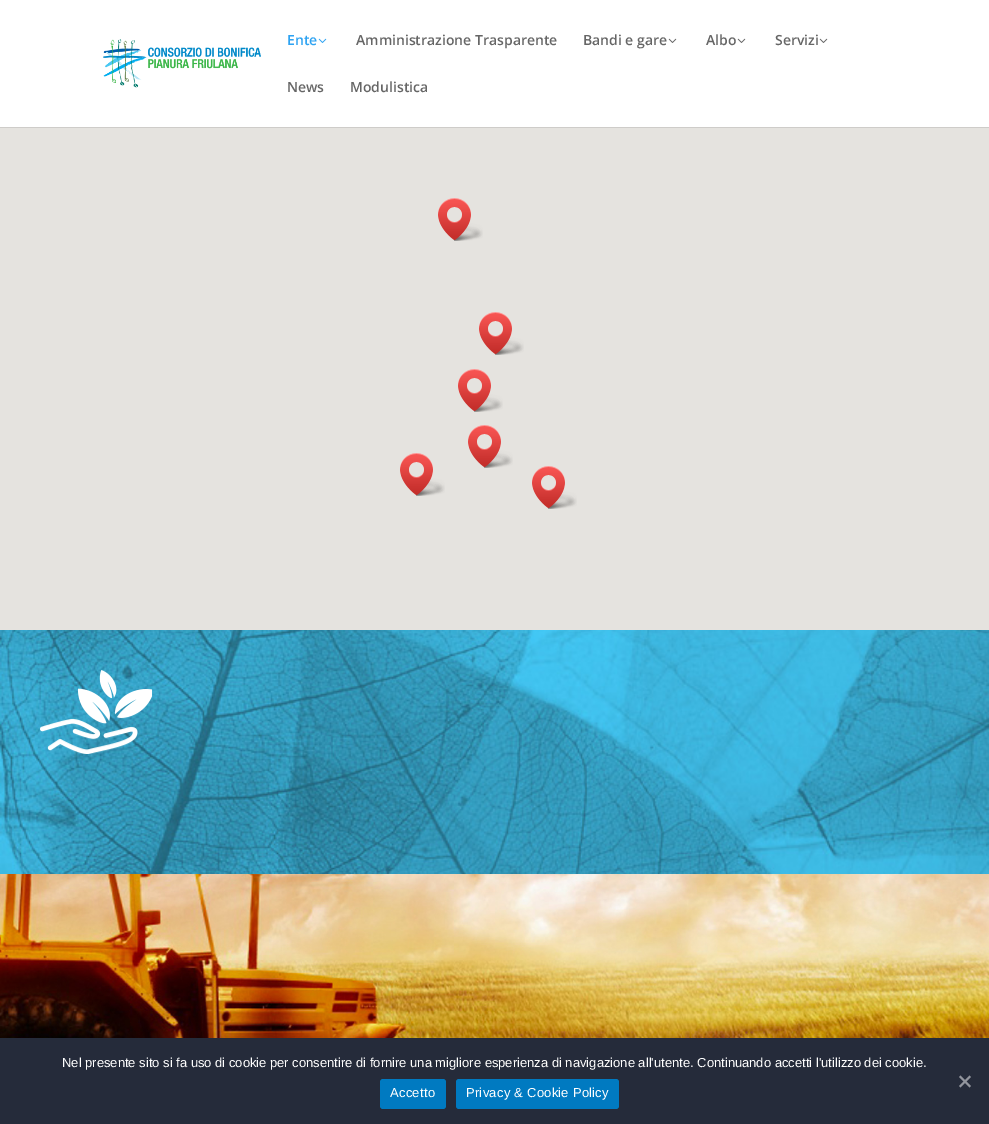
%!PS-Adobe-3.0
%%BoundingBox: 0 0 989 1124
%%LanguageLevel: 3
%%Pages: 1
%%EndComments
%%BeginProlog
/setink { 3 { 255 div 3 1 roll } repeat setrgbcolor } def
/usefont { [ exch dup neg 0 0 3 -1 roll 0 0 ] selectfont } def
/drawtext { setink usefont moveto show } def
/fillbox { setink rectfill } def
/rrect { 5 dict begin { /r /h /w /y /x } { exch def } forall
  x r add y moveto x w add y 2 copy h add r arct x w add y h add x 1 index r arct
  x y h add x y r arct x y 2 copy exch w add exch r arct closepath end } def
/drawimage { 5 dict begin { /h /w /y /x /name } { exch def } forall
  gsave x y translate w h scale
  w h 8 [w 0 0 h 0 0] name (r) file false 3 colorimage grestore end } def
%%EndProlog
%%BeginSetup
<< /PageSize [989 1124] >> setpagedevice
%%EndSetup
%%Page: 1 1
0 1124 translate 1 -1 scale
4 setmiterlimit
0 0 989 1124 229 227 223 fillbox
0 127 989 1 206 204 201 fillbox
0 0 989 127 255 255 255 fillbox
(assets/img1.rgb) 103 39 158 49 drawimage
(Ente) 287 45 /OpenSans-SemiBold 14 46 163 242 drawtext
(assets/img2.rgb) 318 38 9 5 drawimage
(Amministrazione Trasparente) 356 45 /OpenSans-SemiBold 14 102 102 102 drawtext
(Bandi e gare) 583 45 /OpenSans-SemiBold 14 102 102 102 drawtext
(assets/img3.rgb) 668 38 9 5 drawimage
(Albo) 706 45 /OpenSans-SemiBold 14 102 102 102 drawtext
(assets/img3.rgb) 737 38 9 5 drawimage
(Servizi) 775 45 /OpenSans-SemiBold 14 102 102 102 drawtext
(assets/img3.rgb) 819 38 9 5 drawimage
(News) 287 92 /OpenSans-SemiBold 14 102 102 102 drawtext
(Modulistica) 350 92 /OpenSans-SemiBold 14 102 102 102 drawtext
(assets/img4.rgb) 438 198 45 43 drawimage
(assets/img4.rgb) 479 312 45 43 drawimage
(assets/img4.rgb) 458 369 45 43 drawimage
(assets/img4.rgb) 468 425 45 43 drawimage
(assets/img4.rgb) 400 453 45 43 drawimage
(assets/img4.rgb) 532 466 45 43 drawimage
(assets/img5.rgb) 0 630 989 244 drawimage
(assets/img6.rgb) 40 670 112 84 drawimage
(assets/img7.rgb) 0 874 989 164 drawimage
0 1038 989 86 37 43 58 fillbox
(Nel presente sito si fa uso di cookie per consentire di fornire una migliore esperienza di navigazione all'utente. Continuando accetti l'utilizzo dei cookie.) 62 1067 /LiberationSans-Regular 13 255 255 255 drawtext
146 149 157 setink
969.5 1075.5 moveto 971 1077 lineto 960.5 1087.5 lineto 959 1086 lineto closepath fill
959 1077 moveto 960.5 1075.5 lineto 971 1086 lineto 969.5 1087.5 lineto closepath fill
0 122 193 setink
380 1079 66 30 3 rrect fill
255 255 255 setink
390 1097 moveto 0.25 0 (Accetto) ashow
0 122 193 setink
456 1079 163 30 3 rrect fill
255 255 255 setink
466 1097 moveto 0.25 0 (Privacy & Cookie Policy) ashow
showpage
%%EOF
